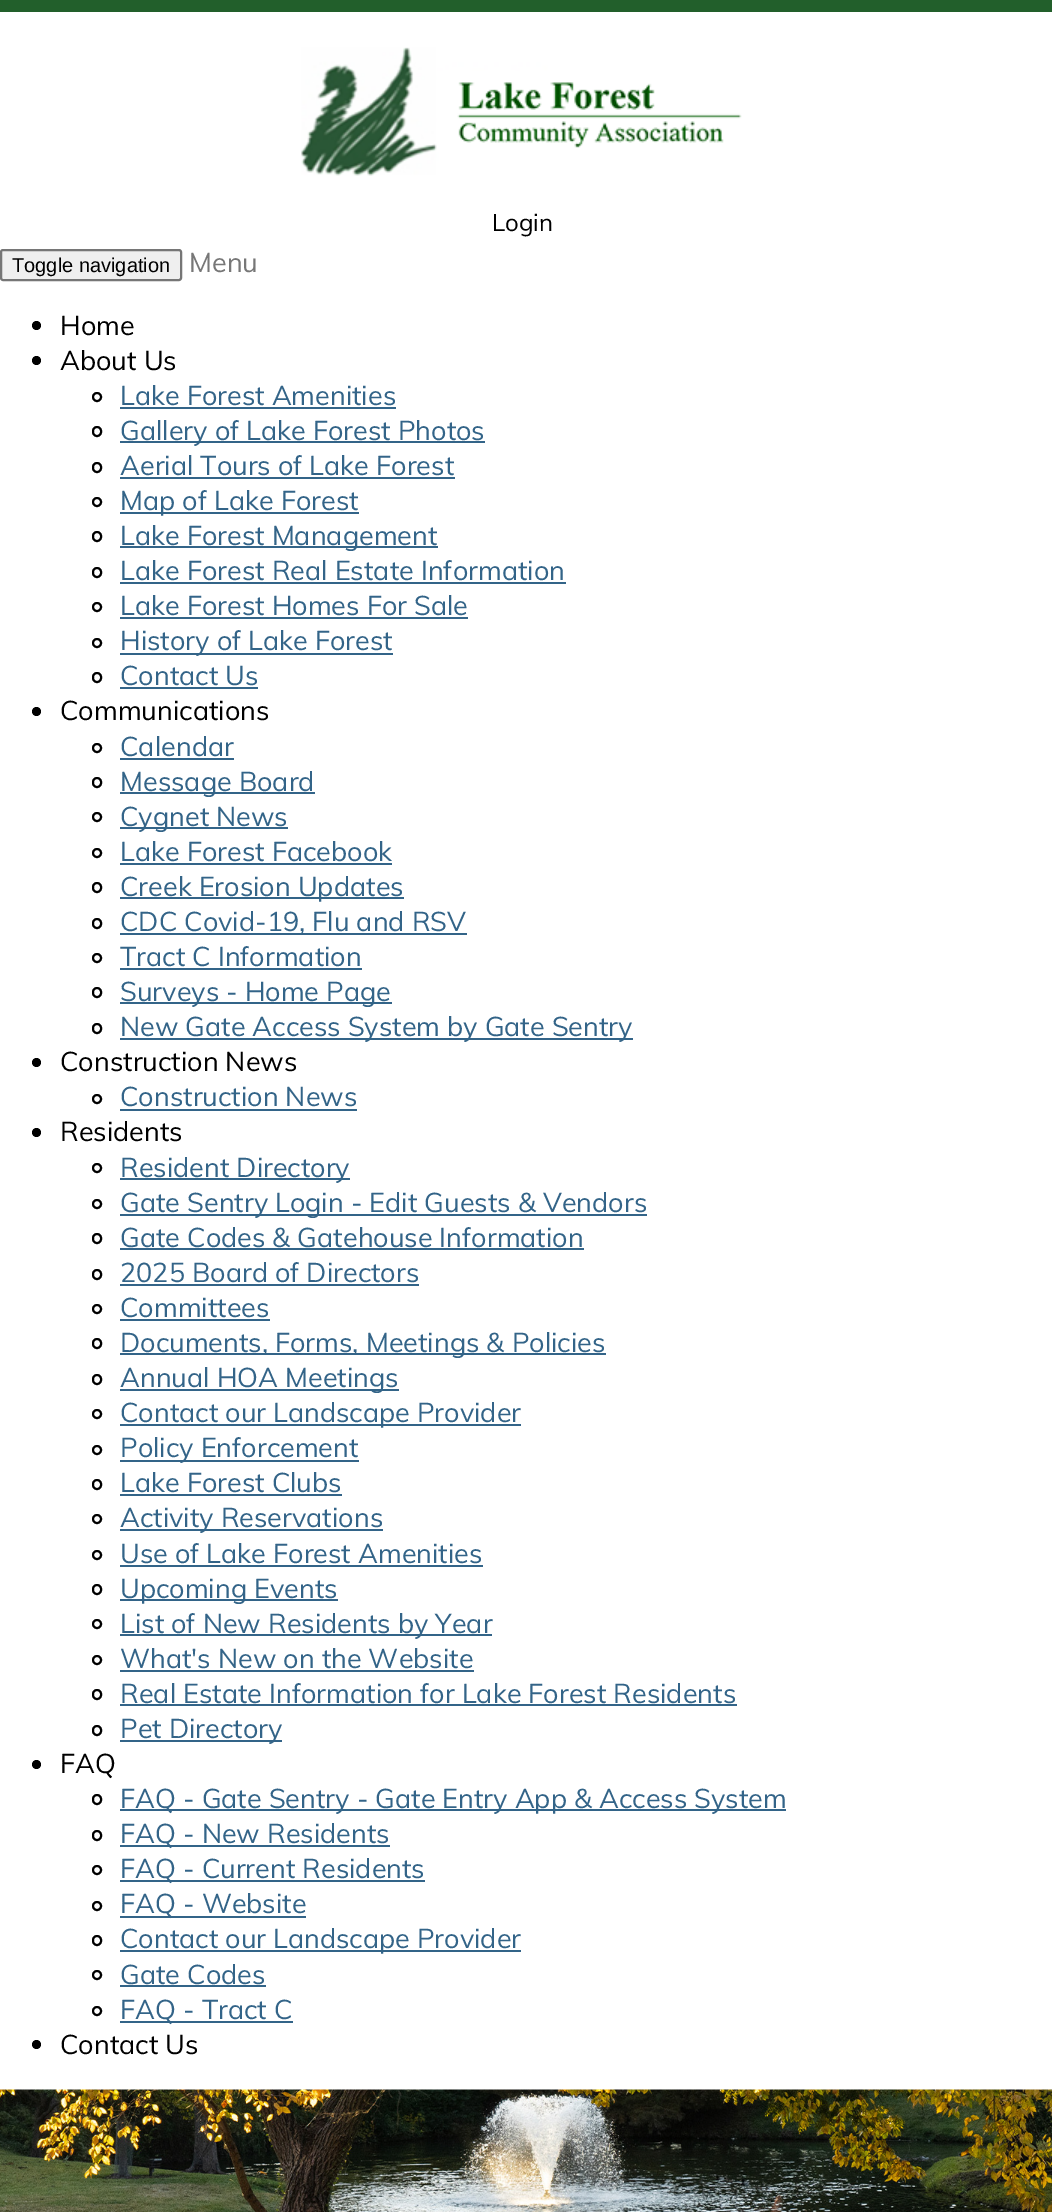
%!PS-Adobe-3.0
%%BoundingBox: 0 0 1052 2212
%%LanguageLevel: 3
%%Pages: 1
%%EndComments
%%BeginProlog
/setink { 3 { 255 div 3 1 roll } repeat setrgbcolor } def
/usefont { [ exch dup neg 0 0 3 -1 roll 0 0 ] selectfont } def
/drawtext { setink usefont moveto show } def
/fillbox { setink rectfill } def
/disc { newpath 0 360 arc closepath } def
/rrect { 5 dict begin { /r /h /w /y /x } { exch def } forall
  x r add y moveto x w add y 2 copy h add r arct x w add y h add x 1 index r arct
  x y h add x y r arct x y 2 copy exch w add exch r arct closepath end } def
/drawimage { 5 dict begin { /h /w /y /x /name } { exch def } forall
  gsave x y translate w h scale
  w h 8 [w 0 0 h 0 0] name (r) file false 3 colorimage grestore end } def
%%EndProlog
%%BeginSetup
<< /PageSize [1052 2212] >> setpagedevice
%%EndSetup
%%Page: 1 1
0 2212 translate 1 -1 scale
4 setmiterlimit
0 0 1052 2212 255 255 255 fillbox
0 0 1052 12 34 95 43 fillbox
(assets/img1.rgb) 301 47 441 129 drawimage
(Login) 492 231 /Muli-Regular 24 0 0 0 drawtext
239 239 239 setink
1 250 180 30 2 rrect gsave fill grestore
118 118 118 setink
2 setlinewidth
stroke
(Toggle navigation) 12 272 /LiberationSans-Regular 20 0 0 0 drawtext
(Menu) 189 272 /Muli-Regular 27 119 119 119 drawtext
0 0 0 setink
36.5 325.5 4.5 disc fill
(Home) 60 335 /Muli-Regular 27 0 0 0 drawtext
36.5 360.5 4.5 disc fill
(About Us) 60 370 /Muli-Regular 27 0 0 0 drawtext
97 397 4 disc stroke
(Lake Forest Amenities) 120 405 /Muli-Regular 27 51 100 136 drawtext
120 407 276 2 51 100 136 fillbox
0 0 0 setink
93 427 8 9 4 rrect stroke
120 441 365 2 51 100 136 fillbox
(Gallery of Lake Forest Photos) 120 440 /Muli-Regular 27 51 100 136 drawtext
0 0 0 setink
93 463 8 9 4 rrect stroke
(Aerial Tours of Lake Forest) 120 475 /Muli-Regular 27 51 100 136 drawtext
120 477 335 2 51 100 136 fillbox
0 0 0 setink
97 502 4 disc stroke
120 512 239 2 51 100 136 fillbox
(Map of Lake Forest) 120 510 /Muli-Regular 27 51 100 136 drawtext
0 0 0 setink
93 532 8 9 4 rrect stroke
120 546 318 2 51 100 136 fillbox
(Lake Forest Management) 120 545 /Muli-Regular 27 51 100 136 drawtext
0 0 0 setink
93 568 8 9 4 rrect stroke
(Lake Forest Real Estate Information) 120 580 /Muli-Regular 27 51 100 136 drawtext
120 582 446 2 51 100 136 fillbox
0 0 0 setink
97 607 4 disc stroke
(Lake Forest Homes For Sale) 120 615 /Muli-Regular 27 51 100 136 drawtext
120 617 348 2 51 100 136 fillbox
0 0 0 setink
97 643 4 disc stroke
120 653 273 2 51 100 136 fillbox
(History of Lake Forest) 120 650 /Muli-Regular 27 51 100 136 drawtext
0 0 0 setink
93 673 8 9 4 rrect stroke
(Contact Us) 120 685 /Muli-Regular 27 51 100 136 drawtext
120 687 138 2 51 100 136 fillbox
0 0 0 setink
36.5 711.5 4.5 disc fill
(Communications) 60 720 /Muli-Regular 27 0 0 0 drawtext
97 748 4 disc stroke
(Calendar) 120 756 /Muli-Regular 27 51 100 136 drawtext
120 758 114 2 51 100 136 fillbox
0 0 0 setink
93 778 8 9 4 rrect stroke
120 792 195 2 51 100 136 fillbox
(Message Board) 120 791 /Muli-Regular 27 51 100 136 drawtext
0 0 0 setink
97 817 4 disc stroke
120 827 168 2 51 100 136 fillbox
(Cygnet News) 120 826 /Muli-Regular 27 51 100 136 drawtext
0 0 0 setink
97 853 4 disc stroke
(Lake Forest Facebook) 120 861 /Muli-Regular 27 51 100 136 drawtext
120 863 272 2 51 100 136 fillbox
0 0 0 setink
93 883 8 9 4 rrect stroke
120 897 284 2 51 100 136 fillbox
(Creek Erosion Updates) 120 896 /Muli-Regular 27 51 100 136 drawtext
0 0 0 setink
93 919 8 9 4 rrect stroke
120 933 347 2 51 100 136 fillbox
(CDC Covid-19, Flu and RSV) 120 931 /Muli-Regular 27 51 100 136 drawtext
0 0 0 setink
97 958 4 disc stroke
(Tract C Information) 120 966 /Muli-Regular 27 51 100 136 drawtext
120 968 242 2 51 100 136 fillbox
0 0 0 setink
93 988 8 9 4 rrect stroke
120 1002 272 2 51 100 136 fillbox
(Surveys - Home Page) 120 1001 /Muli-Regular 27 51 100 136 drawtext
0 0 0 setink
93 1024 8 9 4 rrect stroke
120 1038 513 2 51 100 136 fillbox
(New Gate Access System by Gate Sentry) 120 1036 /Muli-Regular 27 51 100 136 drawtext
0 0 0 setink
36.5 1062.5 4.5 disc fill
(Construction News) 60 1071 /Muli-Regular 27 0 0 0 drawtext
97 1099 4 disc stroke
(Construction News) 120 1106 /Muli-Regular 27 51 100 136 drawtext
120 1109 237 2 51 100 136 fillbox
0 0 0 setink
36.5 1132.5 4.5 disc fill
(Residents) 60 1141 /Muli-Regular 27 0 0 0 drawtext
97 1168 4 disc stroke
120 1178 230 2 51 100 136 fillbox
(Resident Directory) 120 1177 /Muli-Regular 27 51 100 136 drawtext
0 0 0 setink
97 1204 4 disc stroke
120 1214 527 2 51 100 136 fillbox
(Gate Sentry Login - Edit Guests & Vendors) 120 1212 /Muli-Regular 27 51 100 136 drawtext
0 0 0 setink
93 1234 8 9 4 rrect stroke
(Gate Codes & Gatehouse Information) 120 1247 /Muli-Regular 27 51 100 136 drawtext
120 1248 464 2 51 100 136 fillbox
0 0 0 setink
93 1270 8 9 4 rrect stroke
(2025 Board of Directors) 120 1282 /Muli-Regular 27 51 100 136 drawtext
120 1284 299 2 51 100 136 fillbox
0 0 0 setink
97 1309 4 disc stroke
(Committees) 120 1317 /Muli-Regular 27 51 100 136 drawtext
120 1319 150 2 51 100 136 fillbox
0 0 0 setink
93 1339 8 9 4 rrect stroke
120 1353 486 2 51 100 136 fillbox
(Documents, Forms, Meetings & Policies) 120 1352 /Muli-Regular 27 51 100 136 drawtext
0 0 0 setink
93 1375 8 9 4 rrect stroke
120 1389 279 2 51 100 136 fillbox
(Annual HOA Meetings) 120 1387 /Muli-Regular 27 51 100 136 drawtext
0 0 0 setink
97 1414 4 disc stroke
120 1424 401 2 51 100 136 fillbox
(Contact our Landscape Provider) 120 1422 /Muli-Regular 27 51 100 136 drawtext
0 0 0 setink
97 1450 4 disc stroke
120 1460 239 2 51 100 136 fillbox
(Policy Enforcement) 120 1457 /Muli-Regular 27 51 100 136 drawtext
0 0 0 setink
93 1480 8 9 4 rrect stroke
(Lake Forest Clubs) 120 1492 /Muli-Regular 27 51 100 136 drawtext
120 1494 222 2 51 100 136 fillbox
0 0 0 setink
97 1519 4 disc stroke
120 1529 263 2 51 100 136 fillbox
(Activity Reservations) 120 1527 /Muli-Regular 27 51 100 136 drawtext
0 0 0 setink
97 1555 4 disc stroke
(Use of Lake Forest Amenities) 120 1563 /Muli-Regular 27 51 100 136 drawtext
120 1565 363 2 51 100 136 fillbox
0 0 0 setink
93 1585 8 9 4 rrect stroke
120 1599 218 2 51 100 136 fillbox
(Upcoming Events) 120 1598 /Muli-Regular 27 51 100 136 drawtext
0 0 0 setink
97 1624 4 disc stroke
120 1634 372 2 51 100 136 fillbox
(List of New Residents by Year) 120 1633 /Muli-Regular 27 51 100 136 drawtext
0 0 0 setink
97 1660 4 disc stroke
(What's New on the Website) 120 1668 /Muli-Regular 27 51 100 136 drawtext
120 1670 354 2 51 100 136 fillbox
0 0 0 setink
93 1690 8 9 4 rrect stroke
(Real Estate Information for Lake Forest Residents) 120 1703 /Muli-Regular 27 51 100 136 drawtext
120 1704 617 2 51 100 136 fillbox
0 0 0 setink
93 1726 8 9 4 rrect stroke
120 1740 162 2 51 100 136 fillbox
(Pet Directory) 120 1738 /Muli-Regular 27 51 100 136 drawtext
0 0 0 setink
36.5 1764.5 4.5 disc fill
(FAQ) 60 1773 /Muli-Regular 27 0 0 0 drawtext
93 1795 8 9 4 rrect stroke
120 1809 666 2 51 100 136 fillbox
(FAQ - Gate Sentry - Gate Entry App & Access System) 120 1808 /Muli-Regular 27 51 100 136 drawtext
0 0 0 setink
93 1831 8 9 4 rrect stroke
120 1845 270 2 51 100 136 fillbox
(FAQ - New Residents) 120 1843 /Muli-Regular 27 51 100 136 drawtext
0 0 0 setink
97 1870 4 disc stroke
120 1880 305 2 51 100 136 fillbox
(FAQ - Current Residents) 120 1878 /Muli-Regular 27 51 100 136 drawtext
0 0 0 setink
97 1906 4 disc stroke
120 1916 186 2 51 100 136 fillbox
(FAQ - Website) 120 1913 /Muli-Regular 27 51 100 136 drawtext
0 0 0 setink
93 1936 8 9 4 rrect stroke
120 1950 401 2 51 100 136 fillbox
(Contact our Landscape Provider) 120 1948 /Muli-Regular 27 51 100 136 drawtext
0 0 0 setink
97 1975 4 disc stroke
(Gate Codes) 120 1984 /Muli-Regular 27 51 100 136 drawtext
120 1985 146 2 51 100 136 fillbox
0 0 0 setink
97 2011 4 disc stroke
120 2021 173 2 51 100 136 fillbox
(FAQ - Tract C) 120 2019 /Muli-Regular 27 51 100 136 drawtext
0 0 0 setink
36.5 2044.5 4.5 disc fill
(Contact Us) 60 2054 /Muli-Regular 27 0 0 0 drawtext
(assets/img2.rgb) 0 2089 1052 123 drawimage
showpage
%%EOF
